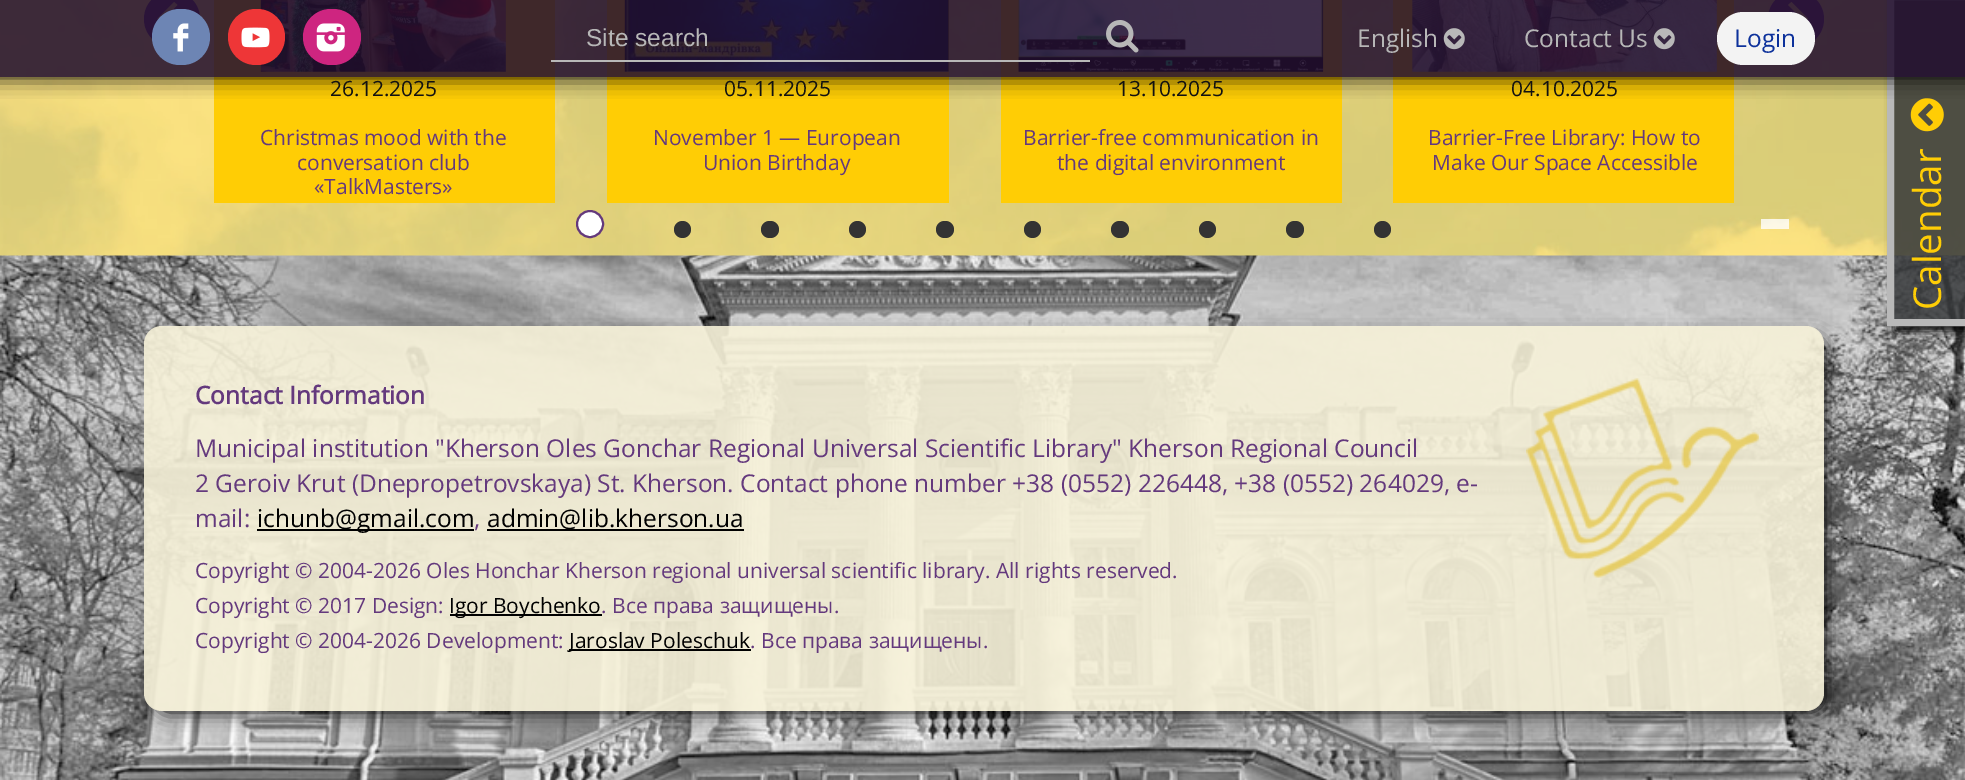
%!PS-Adobe-3.0
%%BoundingBox: 0 0 1965 780
%%LanguageLevel: 3
%%Pages: 1
%%EndComments
%%BeginProlog
/setink { 3 { 255 div 3 1 roll } repeat setrgbcolor } def
/usefont { [ exch dup neg 0 0 3 -1 roll 0 0 ] selectfont } def
/drawtext { setink usefont moveto show } def
/fillbox { setink rectfill } def
/setalpha { dup .setfillconstantalpha .setstrokeconstantalpha } def
/disc { newpath 0 360 arc closepath } def
/rrect { 5 dict begin { /r /h /w /y /x } { exch def } forall
  x r add y moveto x w add y 2 copy h add r arct x w add y h add x 1 index r arct
  x y h add x y r arct x y 2 copy exch w add exch r arct closepath end } def
/softshadow { 12 dict begin { /a /b /q /h /w /y /x } { exch def } forall gsave /was 0 def
  9 -2 -9 { dup b mul 4 div /e exch def 1 sub .425 mul 2.718 exch exp 1 add a .99 .min exch div /now exch def
    1 1 now sub 1 was sub div sub setalpha /was now def
    w h .min e 2 mul add 0 gt { x e sub y e sub w e 2 mul add h e 2 mul add
      q e add b .6 mul add w h .min 2 div e add .min 0 .max rrect fill } if } for grestore end } def
/drawimage { 5 dict begin { /h /w /y /x /name } { exch def } forall
  gsave x y translate w h scale
  w h 8 [w 0 0 h 0 0] name (r) file false 3 colorimage grestore end } def
%%EndProlog
%%BeginSetup
<< /PageSize [1965 780] /PageUsesTransparency true >> setpagedevice
%%EndSetup
%%Page: 1 1
0 .pushpdf14devicefilter
0 780 translate 1 -1 scale
4 setmiterlimit
0 0 1965 780 255 255 255 fillbox
(assets/img7.rgb) 0 0 1965 256 drawimage
100 57 124 setink
172 19 28 disc fill
227 211 126 setink
157.5 18.5 moveto 174 35.5 lineto 177.5 32 lineto 164 18.5 lineto 177.5 5 lineto 174 2 lineto closepath fill
100 57 124 setink
1796 19 28 disc fill
227 211 126 setink
1808 18.5 moveto 1791.5 2 lineto 1788 5 lineto 1801.5 18.5 lineto 1788 32 lineto 1791.5 35.5 lineto closepath fill
214 0 341 203 255 205 5 fillbox
(assets/img8.rgb) 260 0 246 72 drawimage
607 0 342 203 255 205 5 fillbox
(assets/img9.rgb) 624 0 325 72 drawimage
1001 0 341 203 255 205 5 fillbox
(assets/img10.rgb) 1018 0 306 72 drawimage
1393 0 341 203 255 205 5 fillbox
(assets/img11.rgb) 1412 0 305 72 drawimage
(assets/img13.rgb) 0 255 1965 525 drawimage
gsave
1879 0 moveto 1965 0 lineto 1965 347 lineto 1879 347 lineto closepath 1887 -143 moveto 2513 -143 lineto 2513 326 lineto 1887 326 lineto closepath eoclip newpath
0 0 0 setink
1895 -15 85 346 0 5 1 softshadow
grestore
0.85 setalpha
54 56 58 setink
1890.5 -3.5 moveto 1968.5 -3.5 lineto 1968.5 322.5 lineto 1890.5 322.5 lineto closepath fill
1 setalpha
185 185 185 setink
7 setlinewidth
1890.5 -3.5 moveto 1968.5 -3.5 lineto 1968.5 322.5 lineto 1890.5 322.5 lineto closepath stroke
(assets/img12.rgb) 1910 98 34 34 drawimage
gsave
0 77 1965 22 rectclip
0 0 0 setink
-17 -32 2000 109 0 10.5 1 softshadow
grestore
0.87 setalpha
0 0 1965 77 34 15 47 fillbox
1 setalpha
109 133 180 setink
152 9 58 56 28 rrect fill
(assets/img1.rgb) 173 23 16 29 drawimage
238 54 55 setink
228 9 57 56 28 rrect fill
(assets/img2.rgb) 241 27 29 21 drawimage
206 37 128 setink
303 9 58 56 28 rrect fill
(assets/img3.rgb) 316 23 29 29 drawimage
551 60 539 2 184 184 184 fillbox
(Site search) 586 46 /LiberationSans-Regular 24.5 183 183 183 drawtext
(assets/img4.rgb) 1106 20 33 33 drawimage
(English) 1357 47 /OpenSans-Regular 24.5 183 183 183 drawtext
(assets/img5.rgb) 1443 28 22 22 drawimage
(Contact Us) 1524 47 /OpenSans-Regular 24.5 183 183 183 drawtext
(assets/img6.rgb) 1653 28 22 22 drawimage
243 243 243 setink
1717 12 98 53 26.5 rrect fill
(Login) 1734 47 /OpenSans-Regular 24.5 13 49 155 drawtext
(26.12.2025) 330 96 /OpenSans-Regular 21 17 17 17 drawtext
(Christmas mood with the) 260 145 /OpenSans-Regular 21 100 57 125 drawtext
(conversation club) 297 170 /OpenSans-Regular 21 100 57 125 drawtext
(«TalkMasters») 314 194 /OpenSans-Regular 21 100 57 125 drawtext
(05.11.2025) 724 96 /OpenSans-Regular 21 17 17 17 drawtext
(November 1 — European) 653 145 /OpenSans-Regular 21 100 57 125 drawtext
(Union Birthday) 703 170 /OpenSans-Regular 21 100 57 125 drawtext
(13.10.2025) 1117 96 /OpenSans-Regular 21 17 17 17 drawtext
(Barrier-free communication in) 1023 145 /OpenSans-Regular 21 100 57 125 drawtext
(the digital environment) 1057 170 /OpenSans-Regular 21 100 57 125 drawtext
(04.10.2025) 1511 96 /OpenSans-Regular 21 17 17 17 drawtext
(Barrier-Free Library: How to) 1428 145 /OpenSans-Regular 21 100 57 125 drawtext
(Make Our Space Accessible) 1432 170 /OpenSans-Regular 21 100 57 125 drawtext
255 255 255 setink
590 224 13 disc gsave fill grestore
100 57 124 setink
2 setlinewidth
stroke
51 51 51 setink
682.5 229.5 8.5 disc fill
761 221 18 17 8.5 rrect fill
857.5 229.5 8.5 disc fill
936 221 18 17 8.5 rrect fill
1032.5 229.5 8.5 disc fill
1111 221 18 17 8.5 rrect fill
1207.5 229.5 8.5 disc fill
1286 221 18 17 8.5 rrect fill
1382.5 229.5 8.5 disc fill
0.8 setalpha
1761 219 28 10 255 255 255 fillbox
/OpenSans-Regular 38.5 usefont
1 setalpha
255 205 5 setink
gsave 1941 310 translate -90 rotate 0 0 moveto (Calendar) show grestore
gsave
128 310 moveto 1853 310 lineto 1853 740 lineto 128 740 lineto closepath 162 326 moveto 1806 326 lineto 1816 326 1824 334 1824 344 curveto 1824 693 lineto 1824 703 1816 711 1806 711 curveto 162 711 lineto 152 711 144 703 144 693 curveto 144 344 lineto 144 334 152 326 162 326 curveto closepath eoclip newpath
0 0 0 setink
156 338 1669 374 12 9 1 softshadow
grestore
0.9 setalpha
246 241 216 setink
144 326 1680 385 18 rrect fill
1 setalpha
(Contact Information) 195 404 /OpenSans-Bold 24.5 100 57 125 drawtext
(Municipal institution "Kherson Oles Gonchar Regional Universal Scientific Library" Kherson Regional Council) 195 457 /OpenSans-Regular 24.5 100 57 125 drawtext
(2 Geroiv Krut \(Dnepropetrovskaya\) St. Kherson. Contact phone number +38 \(0552\) 226448, +38 \(0552\) 264029, e-) 195 492 /OpenSans-Regular 24.5 100 57 125 drawtext
(mail:) 195 527 /OpenSans-Regular 24.5 100 57 125 drawtext
257 529 217 2 0 0 0 fillbox
(ichunb@gmail.com) 257 527 /OpenSans-Regular 24.5 0 0 0 drawtext
(,) 474 527 /OpenSans-Regular 24.5 100 57 125 drawtext
487 529 257 2 0 0 0 fillbox
(admin@lib.kherson.ua) 487 527 /OpenSans-Regular 24.5 0 0 0 drawtext
(Copyright © 2004-2026 Oles Honchar Kherson regional universal scientific library. All rights reserved.) 195 578 /OpenSans-Regular 21 100 57 125 drawtext
(Copyright © 2017 Design:) 195 613 /OpenSans-Regular 21 100 57 125 drawtext
450 614 152 2 0 0 0 fillbox
(Igor Boychenko) 449 613 /OpenSans-Regular 21 0 0 0 drawtext
(. Все права защищены.) 601 613 /OpenSans-Regular 21 100 57 125 drawtext
(Copyright © 2004-2026 Development:) 195 648 /OpenSans-Regular 21 100 57 125 drawtext
569 649 182 2 0 0 0 fillbox
(Jaroslav Poleschuk) 569 648 /OpenSans-Regular 21 0 0 0 drawtext
(. Все права защищены.) 750 648 /OpenSans-Regular 21 100 57 125 drawtext
(assets/img14.rgb) 1526 378 233 200 drawimage
.poppdf14devicefilter showpage
%%EOF
